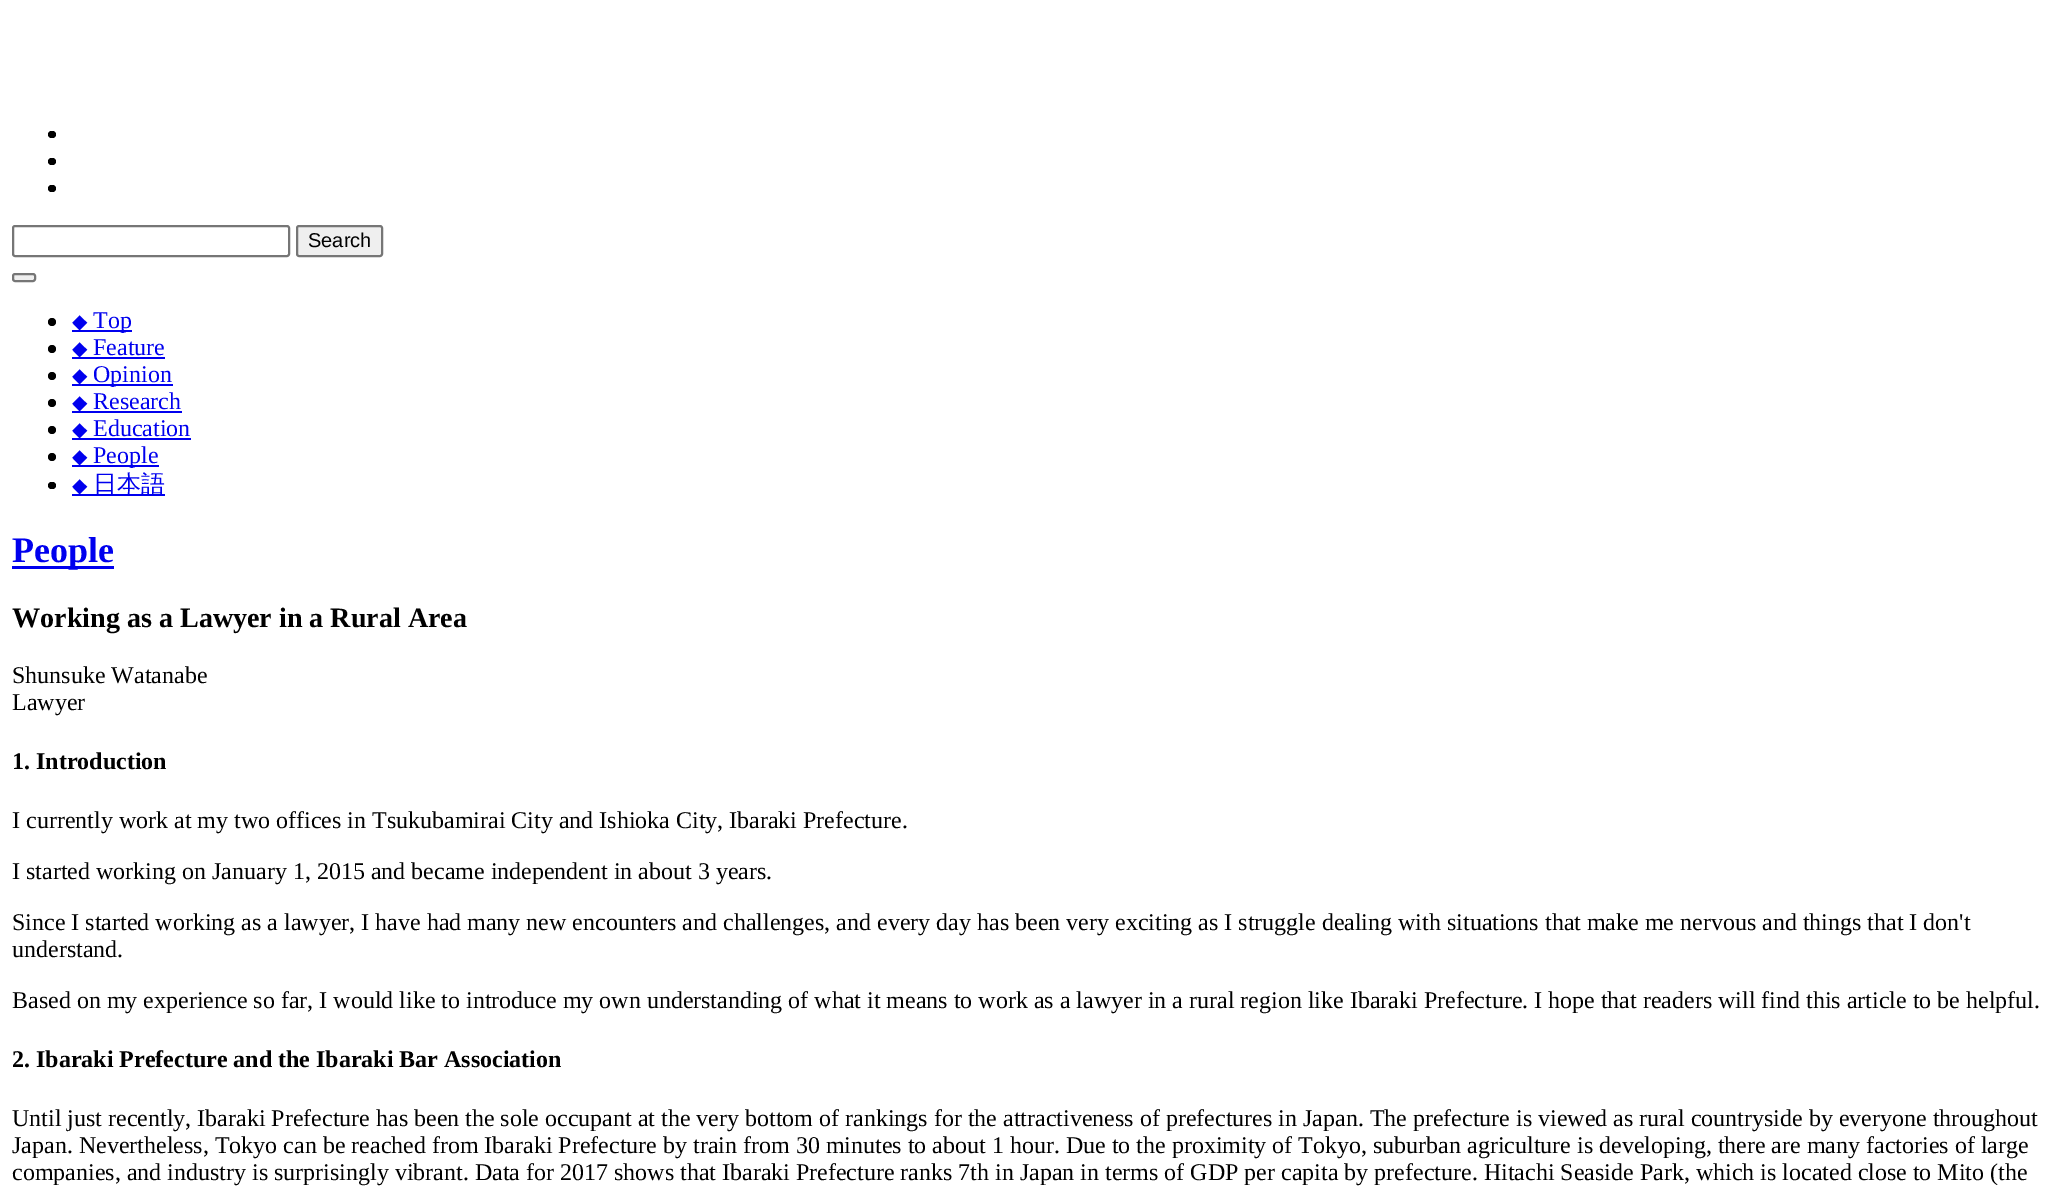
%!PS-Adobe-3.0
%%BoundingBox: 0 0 2060 1190
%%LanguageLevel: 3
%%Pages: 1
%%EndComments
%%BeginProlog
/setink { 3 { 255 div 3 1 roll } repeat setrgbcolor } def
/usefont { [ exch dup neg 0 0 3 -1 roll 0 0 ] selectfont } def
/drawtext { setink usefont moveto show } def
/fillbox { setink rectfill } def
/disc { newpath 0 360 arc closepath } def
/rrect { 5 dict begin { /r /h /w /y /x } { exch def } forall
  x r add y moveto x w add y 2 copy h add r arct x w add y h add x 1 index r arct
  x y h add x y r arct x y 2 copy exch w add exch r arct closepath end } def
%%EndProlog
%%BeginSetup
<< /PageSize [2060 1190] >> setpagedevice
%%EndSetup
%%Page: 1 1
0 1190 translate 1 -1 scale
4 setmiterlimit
0 0 2060 1190 255 255 255 fillbox
0 0 0 setink
48 131 8 7 3.5 rrect fill
48 158 8 7 3.5 rrect fill
48 185 8 7 3.5 rrect fill
118 118 118 setink
2 setlinewidth
13 226 276 30 2 rrect stroke
239 239 239 setink
297 226 85 30 2 rrect gsave fill grestore
118 118 118 setink
stroke
(Search) 308 247 /LiberationSans-Regular 20 0 0 0 drawtext
239 239 239 setink
13 274 22 7 2 rrect gsave fill grestore
118 118 118 setink
stroke
0 0 0 setink
52 322 4 disc fill
72 330 15 2 0 0 238 fillbox
(◆) 72 328 /DejaVuSans-Regular 20 0 0 238 drawtext
87 330 45 2 0 0 238 fillbox
(Top) 93 328 /LiberationSerif-Regular 24 0 0 238 drawtext
0 0 0 setink
52 349 4 disc fill
72 357 15 2 0 0 238 fillbox
(◆) 72 355 /DejaVuSans-Regular 20 0 0 238 drawtext
87 357 78 2 0 0 238 fillbox
(Feature) 93 355 /LiberationSerif-Regular 24 0 0 238 drawtext
0 0 0 setink
52 376 4 disc fill
72 384 15 2 0 0 238 fillbox
(◆) 72 382 /DejaVuSans-Regular 20 0 0 238 drawtext
87 384 86 2 0 0 238 fillbox
(Opinion) 93 382 /LiberationSerif-Regular 24 0 0 238 drawtext
0 0 0 setink
52 403 4 disc fill
72 411 15 2 0 0 238 fillbox
(◆) 72 409 /DejaVuSans-Regular 20 0 0 238 drawtext
87 411 95 2 0 0 238 fillbox
(Research) 93 409 /LiberationSerif-Regular 24 0 0 238 drawtext
0 0 0 setink
52 430 4 disc fill
72 438 15 2 0 0 238 fillbox
(◆) 72 436 /DejaVuSans-Regular 20 0 0 238 drawtext
87 438 104 2 0 0 238 fillbox
(Education) 93 436 /LiberationSerif-Regular 24 0 0 238 drawtext
0 0 0 setink
52 457 4 disc fill
72 465 15 2 0 0 238 fillbox
(◆) 72 463 /DejaVuSans-Regular 20 0 0 238 drawtext
87 465 72 2 0 0 238 fillbox
(People) 93 463 /LiberationSerif-Regular 24 0 0 238 drawtext
0 0 0 setink
48 482 8 7 3.5 rrect fill
72 494 15 2 0 0 238 fillbox
(◆) 72 492 /DejaVuSans-Regular 20 0 0 238 drawtext
87 494 78 2 0 0 238 fillbox
(日本語) 93 492 /WenQuanYiZenHei-Medium 24 0 0 238 drawtext
12 566 102 3 0 0 238 fillbox
(People) 12 562 /LiberationSerif-Bold 36 0 0 238 drawtext
(Working as a Lawyer in a Rural Area) 12 627 /LiberationSerif-Bold 28.1 0 0 0 drawtext
(Shunsuke Watanabe) 12 683 /LiberationSerif-Regular 24 0 0 0 drawtext
(Lawyer) 12 710 /LiberationSerif-Regular 24 0 0 0 drawtext
(1. Introduction) 12 769 /LiberationSerif-Bold 24 0 0 0 drawtext
(I currently work at my two offices in Tsukubamirai City and Ishioka City, Ibaraki Prefecture.) 12 828 /LiberationSerif-Regular 24 0 0 0 drawtext
(I started working on January 1, 2015 and became independent in about 3 years.) 12 879 /LiberationSerif-Regular 24 0 0 0 drawtext
(Since I started working as a lawyer, I have had many new encounters and challenges, and every day has been very exciting as I struggle dealing with situations that make me nervous and things that I don't) 12 930 /LiberationSerif-Regular 24 0 0 0 drawtext
(understand.) 12 957 /LiberationSerif-Regular 24 0 0 0 drawtext
(Based on my experience so far, I would like to introduce my own understanding of what it means to work as a lawyer in a rural region like Ibaraki Prefecture. I hope that readers will find this article to be helpful.) 12 1008 /LiberationSerif-Regular 24 0 0 0 drawtext
(2. Ibaraki Prefecture and the Ibaraki Bar Association) 12 1067 /LiberationSerif-Bold 24 0 0 0 drawtext
(Until just recently, Ibaraki Prefecture has been the sole occupant at the very bottom of rankings for the attractiveness of prefectures in Japan. The prefecture is viewed as rural countryside by everyone throughout) 12 1126 /LiberationSerif-Regular 24 0 0 0 drawtext
(Japan. Nevertheless, Tokyo can be reached from Ibaraki Prefecture by train from 30 minutes to about 1 hour. Due to the proximity of Tokyo, suburban agriculture is developing, there are many factories of large) 12 1153 /LiberationSerif-Regular 24 0 0 0 drawtext
(companies, and industry is surprisingly vibrant. Data for 2017 shows that Ibaraki Prefecture ranks 7th in Japan in terms of GDP per capita by prefecture. Hitachi Seaside Park, which is located close to Mito \(the) 12 1180 /LiberationSerif-Regular 24 0 0 0 drawtext
showpage
%%EOF
